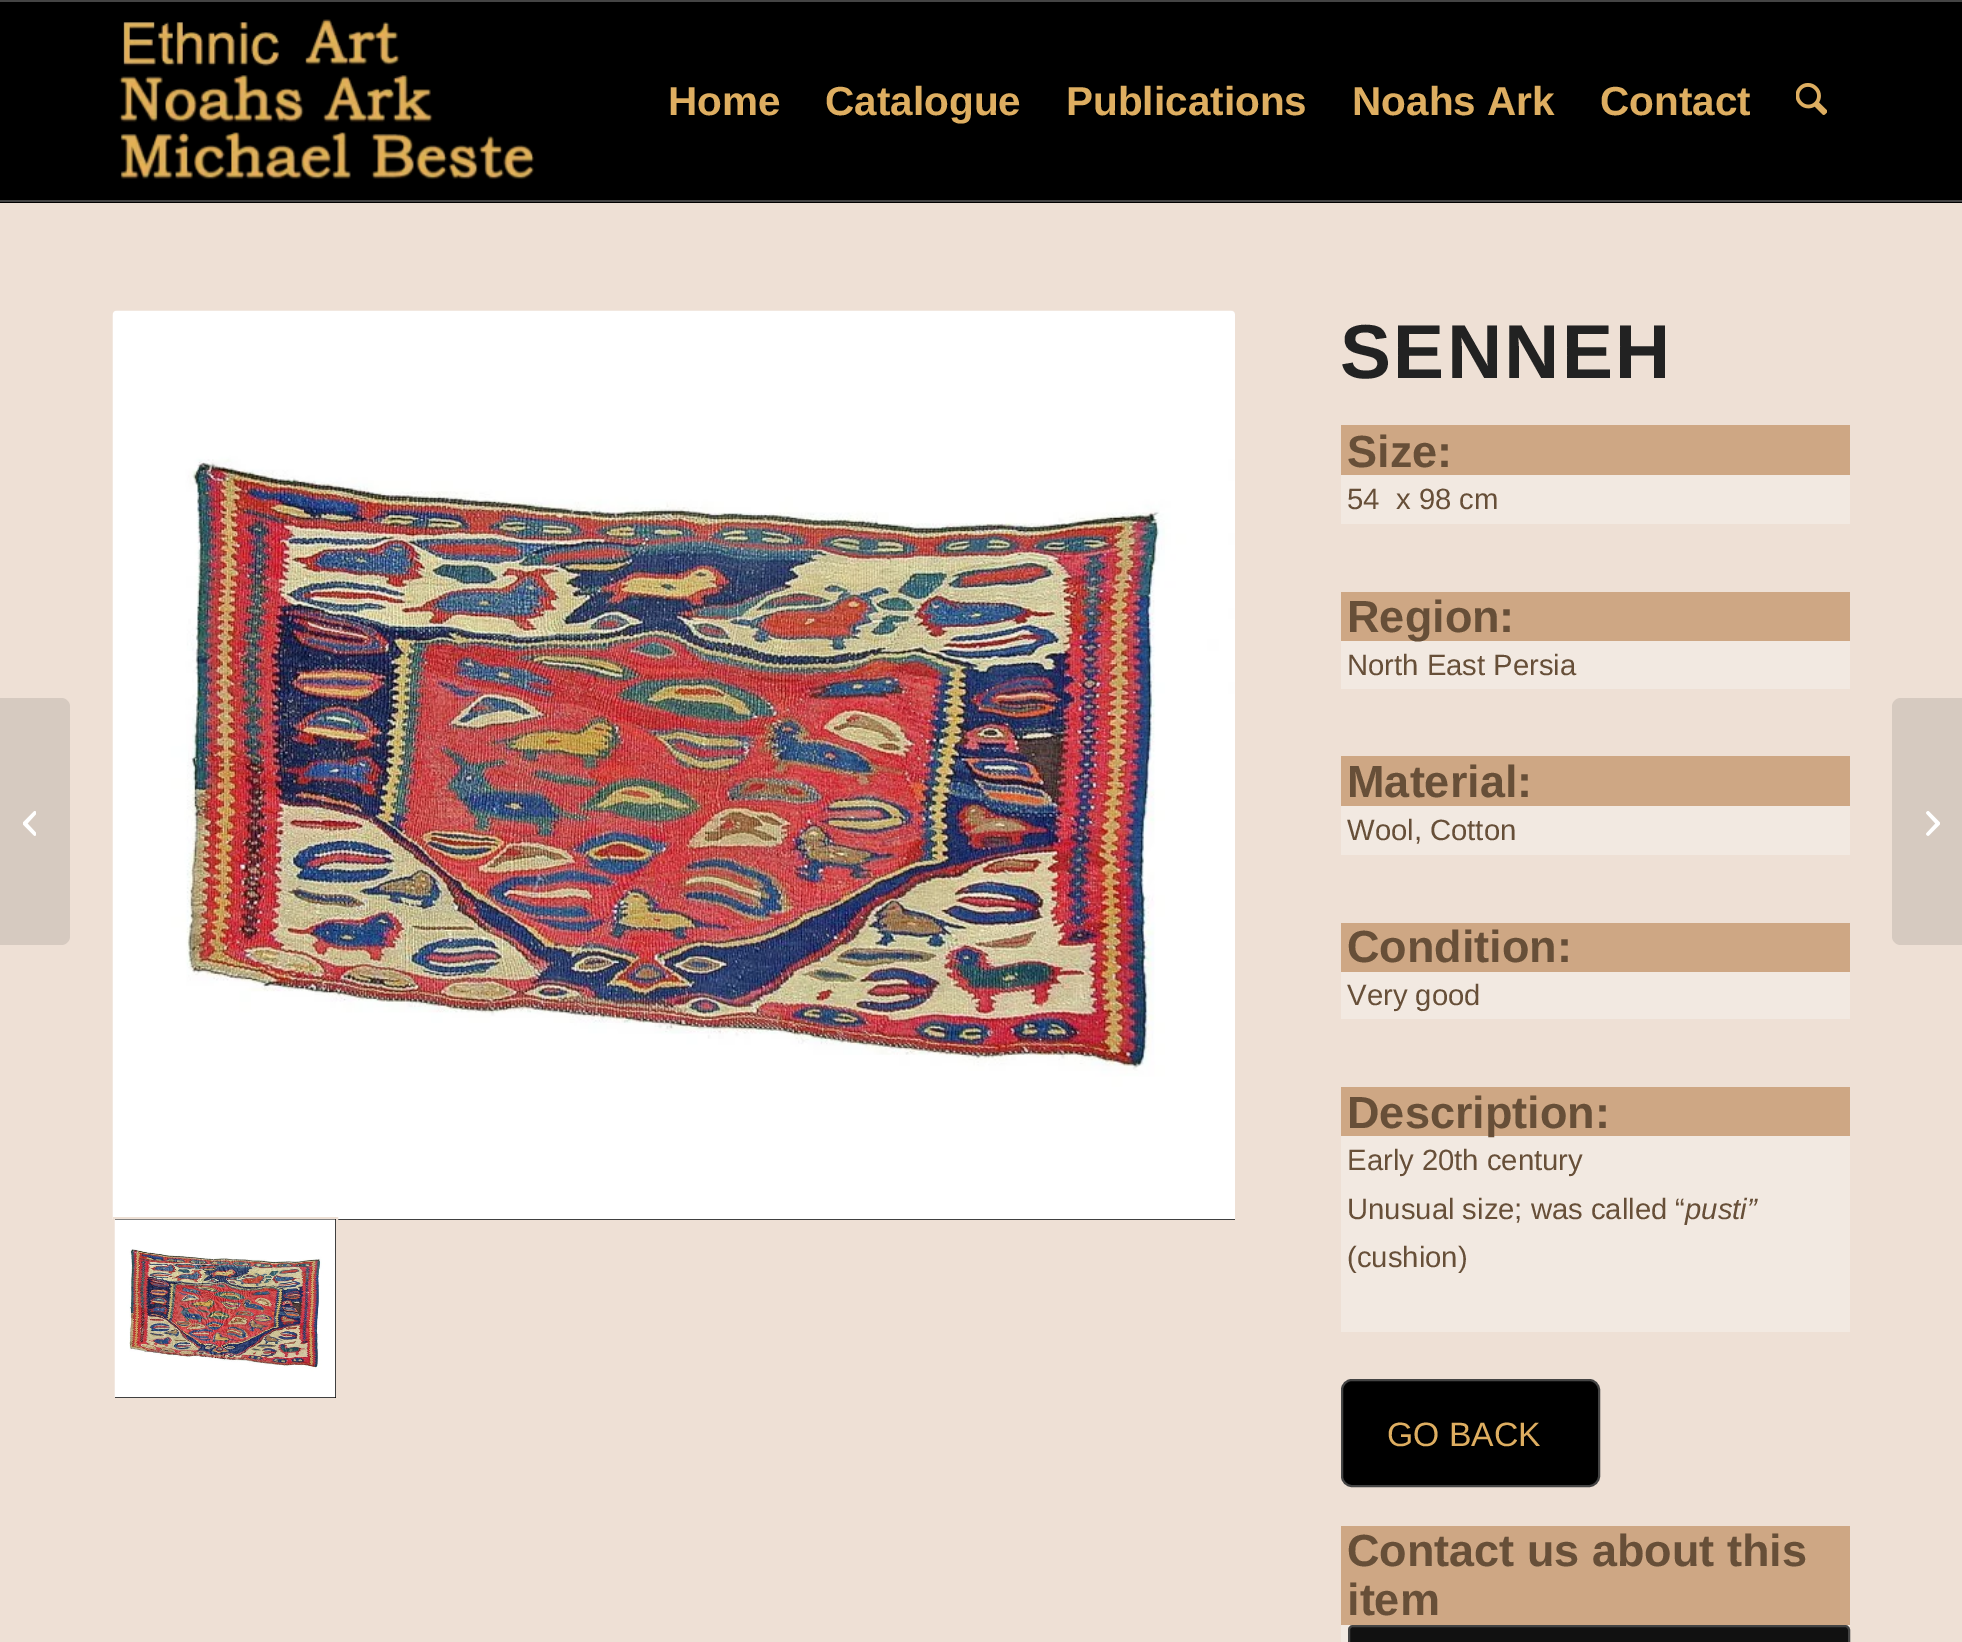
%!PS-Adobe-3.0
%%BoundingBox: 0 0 1962 1642
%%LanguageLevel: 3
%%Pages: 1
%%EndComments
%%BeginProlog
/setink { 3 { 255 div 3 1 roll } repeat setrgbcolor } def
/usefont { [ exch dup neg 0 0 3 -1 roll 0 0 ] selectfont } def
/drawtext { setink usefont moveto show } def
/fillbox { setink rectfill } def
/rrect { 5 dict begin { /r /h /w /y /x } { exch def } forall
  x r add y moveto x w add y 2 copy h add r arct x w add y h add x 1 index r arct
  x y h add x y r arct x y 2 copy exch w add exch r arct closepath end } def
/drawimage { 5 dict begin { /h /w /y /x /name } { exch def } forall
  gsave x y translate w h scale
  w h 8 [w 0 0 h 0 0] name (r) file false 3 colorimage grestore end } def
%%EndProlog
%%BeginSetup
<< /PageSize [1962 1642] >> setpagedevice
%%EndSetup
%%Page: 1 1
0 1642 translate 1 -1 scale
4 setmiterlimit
0 0 1962 1642 238 224 213 fillbox
0 2 1962 201 0 0 0 fillbox
0 0 1962 2 68 68 68 fillbox
0 200 1962 2 68 68 68 fillbox
(assets/img1.rgb) 119 19 415 161 drawimage
(Home) 668 115 /LiberationSans-Bold 40.5 222 174 97 drawtext
(Catalogue) 825 115 /LiberationSans-Bold 40.5 222 174 97 drawtext
(Publications) 1066 115 /LiberationSans-Bold 40.5 222 174 97 drawtext
(Noahs Ark) 1352 115 /LiberationSans-Bold 40.5 222 174 97 drawtext
(Contact) 1600 115 /LiberationSans-Bold 40.5 222 174 97 drawtext
(assets/img2.rgb) 1796 83 31 32 drawimage
214 202 192 setink
0 698 moveto 61 698 lineto 66 698 70 702 70 707 curveto 70 936 lineto 70 941 66 945 61 945 curveto 0 945 lineto closepath fill
(assets/img3.rgb) 23 811 13 25 drawimage
0 0 0 setink
118 311 moveto 1230 311 lineto 1233 311 1235 313 1235 316 curveto 1235 1220 lineto 113 1220 lineto 113 316 lineto 113 313 115 311 118 311 curveto closepath fill
(assets/img4.rgb) 112 310 1123 910 drawimage
114 1218 moveto 337 1218 lineto 337 1399 lineto 114 1399 lineto closepath gsave fill grestore
238 224 213 setink
2 setlinewidth
stroke
(assets/img5.rgb) 114 1219 222 179 drawimage
/LiberationSans-Bold 76.5 usefont
34 34 34 setink
1340 378 moveto 2.25 0 (SENNEH) ashow
1341 425 509 50 206 167 132 fillbox
(Size:) 1347 467 /LiberationSans-Bold 45 103 79 56 drawtext
1341 475 509 49 242 233 225 fillbox
(54  x 98 cm) 1347 509 /LiberationSans-Regular 29.25 103 79 56 drawtext
1341 592 509 49 206 167 132 fillbox
1341 641 509 48 242 233 225 fillbox
(Region:) 1347 632 /LiberationSans-Bold 45 103 79 56 drawtext
(North East Persia) 1347 675 /LiberationSans-Regular 29.25 103 79 56 drawtext
1341 756 509 50 206 167 132 fillbox
(Material:) 1347 797 /LiberationSans-Bold 45 103 79 56 drawtext
1341 806 509 49 242 233 225 fillbox
(Wool, Cotton) 1347 840 /LiberationSans-Regular 29.25 103 79 56 drawtext
1341 923 509 49 206 167 132 fillbox
(Condition:) 1347 962 /LiberationSans-Bold 45 103 79 56 drawtext
1341 972 509 47 242 233 225 fillbox
(Very good) 1347 1005 /LiberationSans-Regular 29.25 103 79 56 drawtext
1341 1087 509 49 206 167 132 fillbox
1341 1136 509 196 242 233 225 fillbox
(Description:) 1347 1128 /LiberationSans-Bold 45 103 79 56 drawtext
(Early 20th century) 1347 1170 /LiberationSans-Regular 29.25 103 79 56 drawtext
(Unusual size; was called “) 1347 1219 /LiberationSans-Regular 29.25 103 79 56 drawtext
(pusti”) 1685 1219 /LiberationSans-Italic 29.25 103 79 56 drawtext
(\(cushion\)) 1347 1267 /LiberationSans-Regular 29.25 103 79 56 drawtext
0 0 0 setink
1342 1380 257 106 10 rrect gsave fill grestore
68 68 68 setink
stroke
(GO BACK) 1387 1446 /LiberationSans-Regular 33.75 222 174 97 drawtext
1341 1526 509 99 206 167 132 fillbox
(Contact us about this) 1347 1566 /LiberationSans-Bold 45 103 79 56 drawtext
(item) 1347 1615 /LiberationSans-Bold 45 103 79 56 drawtext
1341 1625 509 17 242 233 225 fillbox
17 17 17 setink
1349 1626 500 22 4 rrect gsave fill grestore
68 68 68 setink
stroke
214 202 192 setink
1901 698 moveto 1962 698 lineto 1962 945 lineto 1901 945 lineto 1896 945 1892 941 1892 936 curveto 1892 707 lineto 1892 702 1896 698 1901 698 curveto closepath fill
(assets/img6.rgb) 1926 811 14 25 drawimage
showpage
%%EOF
